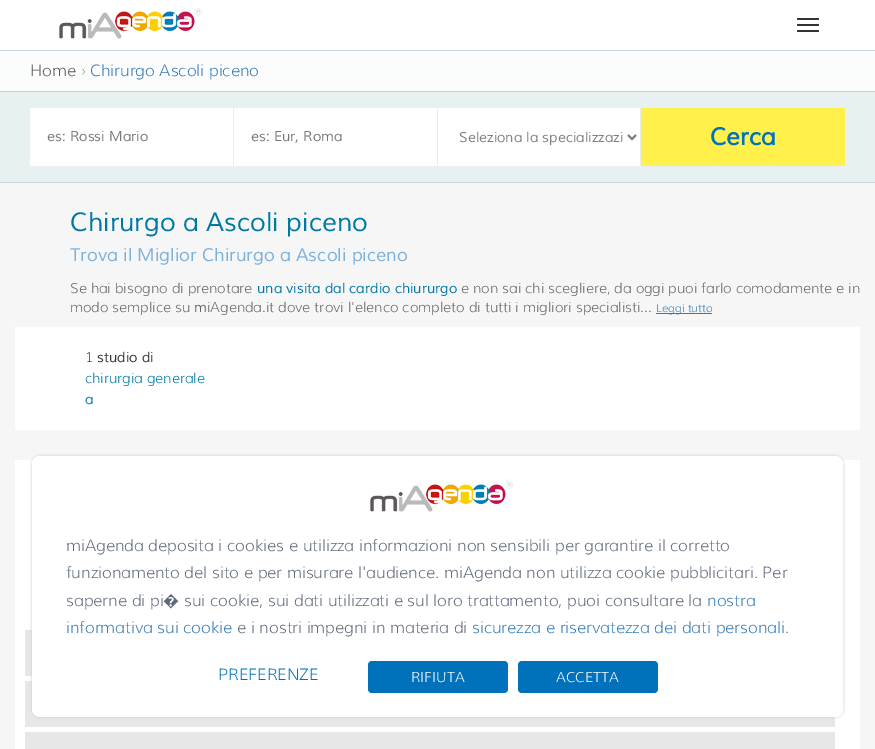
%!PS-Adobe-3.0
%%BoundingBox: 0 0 875 749
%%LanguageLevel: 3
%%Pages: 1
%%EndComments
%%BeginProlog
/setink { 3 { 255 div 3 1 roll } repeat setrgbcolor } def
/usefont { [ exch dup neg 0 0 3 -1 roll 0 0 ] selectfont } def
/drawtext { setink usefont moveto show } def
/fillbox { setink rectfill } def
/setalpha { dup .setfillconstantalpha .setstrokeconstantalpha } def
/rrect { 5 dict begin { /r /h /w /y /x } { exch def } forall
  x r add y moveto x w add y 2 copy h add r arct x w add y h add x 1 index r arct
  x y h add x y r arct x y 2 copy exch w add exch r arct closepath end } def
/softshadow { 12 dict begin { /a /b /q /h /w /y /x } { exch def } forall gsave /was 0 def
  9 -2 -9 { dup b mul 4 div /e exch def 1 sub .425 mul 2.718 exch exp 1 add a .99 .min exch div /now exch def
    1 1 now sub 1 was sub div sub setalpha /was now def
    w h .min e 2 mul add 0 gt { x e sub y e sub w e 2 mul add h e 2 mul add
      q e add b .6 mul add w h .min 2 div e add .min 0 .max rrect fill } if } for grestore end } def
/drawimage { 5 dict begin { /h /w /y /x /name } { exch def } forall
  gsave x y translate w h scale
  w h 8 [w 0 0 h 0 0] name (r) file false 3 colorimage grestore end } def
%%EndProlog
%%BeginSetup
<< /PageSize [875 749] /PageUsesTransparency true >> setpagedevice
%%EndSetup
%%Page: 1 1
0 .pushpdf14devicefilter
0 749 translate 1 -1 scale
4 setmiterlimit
0 0 875 749 255 255 255 fillbox
0 50 875 1 201 214 223 fillbox
(assets/img1.rgb) 59 8 143 31 drawimage
51 51 51 setink
797 18 22 2 1 rrect fill
797 24 22 2 1 rrect fill
797 30 22 2 1 rrect fill
0 51 875 40 251 252 252 fillbox
0 91 875 1 204 204 204 fillbox
(Home) 30 76 /Muli-Light 16 94 85 81 drawtext
(›) 81 76 /Muli-Light 16 153 153 153 drawtext
(Chirurgo Ascoli piceno) 90 76 /Muli-Light 16 51 122 183 drawtext
0 92 875 90 232 241 242 fillbox
0 182 875 1 201 214 223 fillbox
30 108 611 58 255 255 255 fillbox
235 235 235 setink
234 108 moveto 234 166 lineto 233 165 lineto 233 109 lineto closepath fill
(es: Rossi Mario) 47 141 /Muli-Italic 14 119 119 119 drawtext
235 235 235 setink
438 108 moveto 438 166 lineto 437 165 lineto 437 109 lineto closepath fill
(es: Eur, Roma) 251 141 /Muli-Italic 14 119 119 119 drawtext
235 235 235 setink
641 108 moveto 641 166 lineto 640 165 lineto 640 109 lineto closepath fill
128 128 128 setink
2 setlinewidth
628 135 moveto 632 139 lineto 636 135 lineto stroke
(Seleziona la specializzazi) 459 142 /Muli-Italic 14 128 128 128 drawtext
641 108 204 58 255 240 75 fillbox
(Cerca) 710 145 /Muli-BoldItalic 24 0 114 188 drawtext
0 183 875 566 246 246 246 fillbox
(Chirurgo a Ascoli piceno) 70 231 /Muli-Italic 26 0 120 164 drawtext
(Trova il Miglior Chirurgo a Ascoli piceno) 70 261 /Muli-Italic 18 123 177 221 drawtext
(Se hai bisogno di prenotare) 70 293 /Muli-Light 14 102 102 102 drawtext
(una visita dal cardio chiururgo) 257 293 /Muli-Italic 14 0 120 164 drawtext
(e non sai chi scegliere, da oggi puoi farlo comodamente e in) 461 293 /Muli-Light 14 102 102 102 drawtext
(modo semplice su) 70 312 /Muli-Light 14 102 102 102 drawtext
(m) 194 312 /Muli-Italic 14 102 102 102 drawtext
(iAgenda.it dove trovi l'elenco completo di tutti i migliori specialisti...) 207 312 /Muli-Light 14 102 102 102 drawtext
656 313 56 1 51 122 183 fillbox
(Leggi tutto) 656 312 /Muli-Light 11 51 122 183 drawtext
15 327 845 103 255 255 255 fillbox
(1) 85 362 /Muli-Light 14 51 51 51 drawtext
(studio di) 97 362 /Muli-Italic 14 51 51 51 drawtext
(chirurgia generale) 85 383 /Muli-Light 14 0 120 164 drawtext
(a) 85 404 /Muli-Italic 14 0 120 164 drawtext
15 460 845 289 255 255 255 fillbox
25 630 7 46 231 231 231 fillbox
25 681 810 46 231 231 231 fillbox
25 732 810 17 231 231 231 fillbox
204 204 204 setink
32 456 811 261 8 1.5 1 softshadow
255 255 255 setink
32 456 811 261 8 rrect fill
(assets/img1.rgb) 370 481 143 31 drawimage
(miAgenda deposita i cookies e utilizza informazioni non sensibili per garantire il corretto) 66 551 /Muli-Light 16 96 105 123 drawtext
(funzionamento del sito e per misurare l'audience. miAgenda non utilizza cookie pubblicitari. Per) 66 578 /Muli-Light 16 96 105 123 drawtext
(saperne di pi) 66 606 /Muli-Light 16 96 105 123 drawtext
(�) 163 606 /NotoSans-Medium 16 96 105 123 drawtext
(sui cookie, sui dati utilizzati e sul loro trattamento, puoi consultare la) 184 606 /Muli-Light 16 96 105 123 drawtext
(nostra) 707 606 /Muli-Light 16 51 122 183 drawtext
(informativa sui cookie) 66 633 /Muli-Light 16 51 122 183 drawtext
(e i nostri impegni in materia di) 237 633 /Muli-Light 16 96 105 123 drawtext
(sicurezza e riservatezza dei dati personali.) 472 633 /Muli-Light 16 51 122 183 drawtext
(PREFERENZE) 218 680 /Muli-Light 16 0 114 188 drawtext
0 114 187 setink
368 661 140 32 4 rrect fill
(RIFIUTA) 411 682 /Muli-Light 14 255 255 255 drawtext
0 114 187 setink
518 661 140 32 4 rrect fill
(ACCETTA) 556 682 /Muli-Light 14 255 255 255 drawtext
.poppdf14devicefilter showpage
%%EOF
